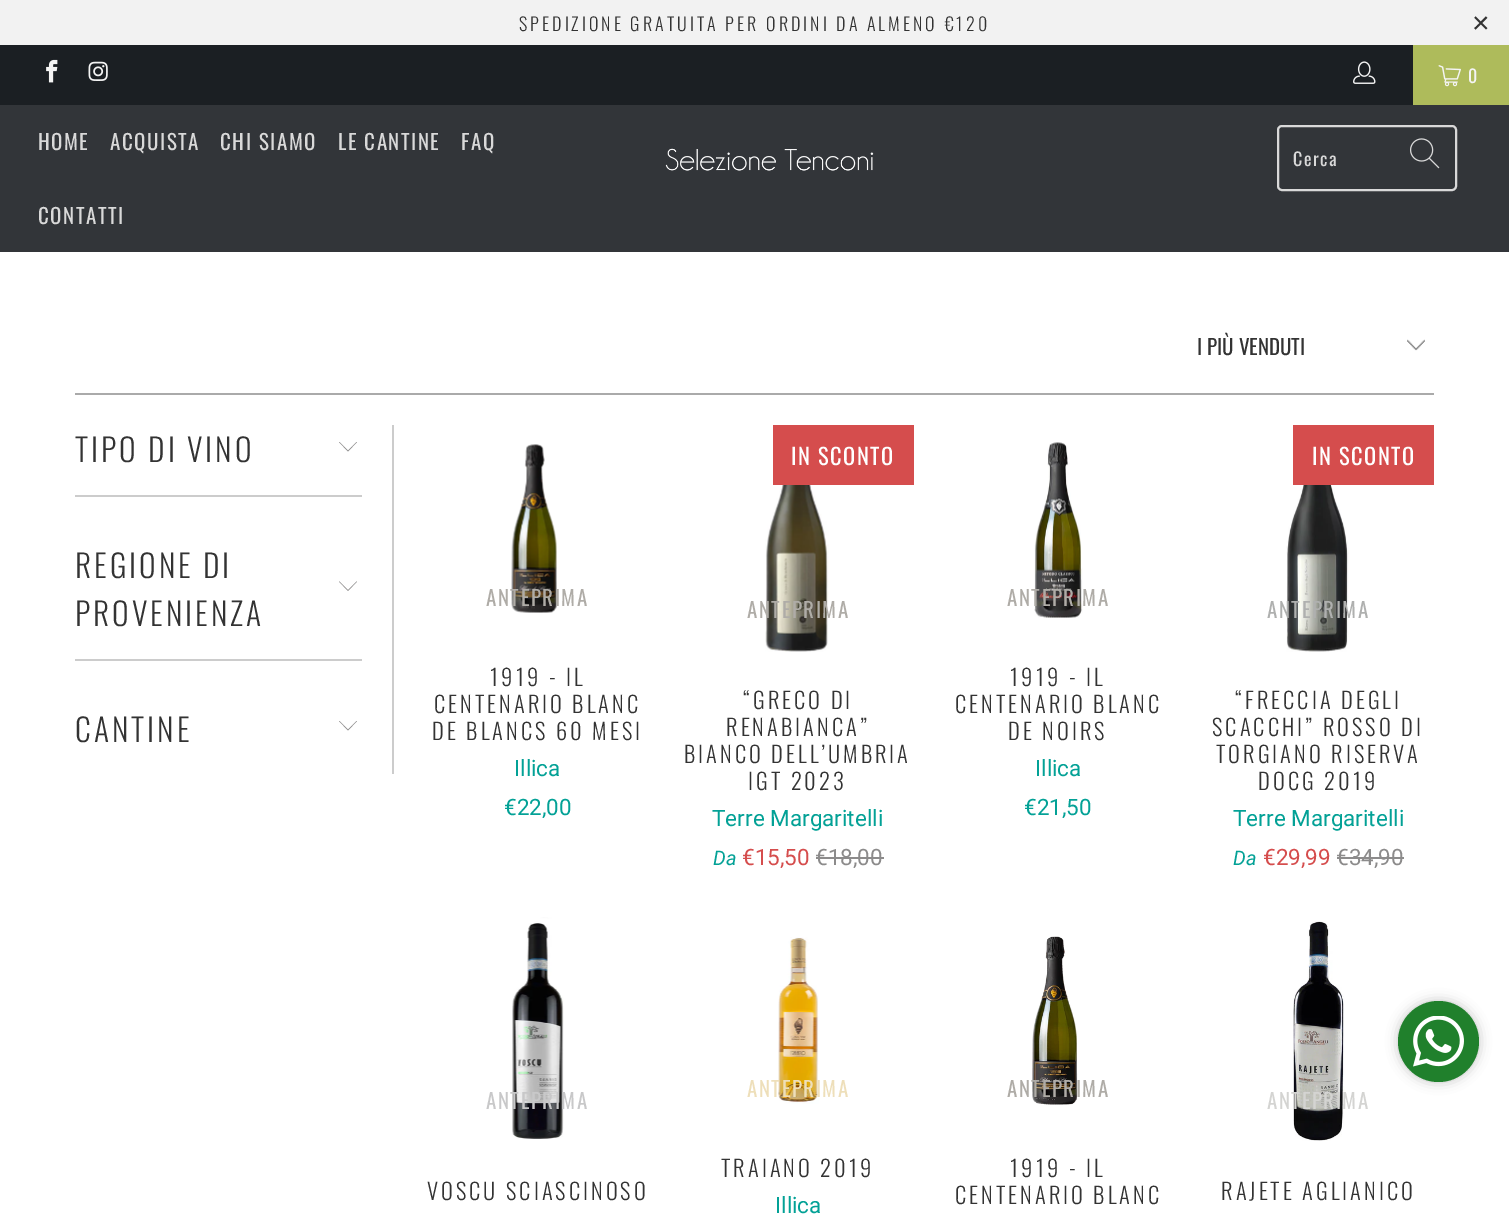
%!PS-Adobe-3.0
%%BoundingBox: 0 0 1509 1216
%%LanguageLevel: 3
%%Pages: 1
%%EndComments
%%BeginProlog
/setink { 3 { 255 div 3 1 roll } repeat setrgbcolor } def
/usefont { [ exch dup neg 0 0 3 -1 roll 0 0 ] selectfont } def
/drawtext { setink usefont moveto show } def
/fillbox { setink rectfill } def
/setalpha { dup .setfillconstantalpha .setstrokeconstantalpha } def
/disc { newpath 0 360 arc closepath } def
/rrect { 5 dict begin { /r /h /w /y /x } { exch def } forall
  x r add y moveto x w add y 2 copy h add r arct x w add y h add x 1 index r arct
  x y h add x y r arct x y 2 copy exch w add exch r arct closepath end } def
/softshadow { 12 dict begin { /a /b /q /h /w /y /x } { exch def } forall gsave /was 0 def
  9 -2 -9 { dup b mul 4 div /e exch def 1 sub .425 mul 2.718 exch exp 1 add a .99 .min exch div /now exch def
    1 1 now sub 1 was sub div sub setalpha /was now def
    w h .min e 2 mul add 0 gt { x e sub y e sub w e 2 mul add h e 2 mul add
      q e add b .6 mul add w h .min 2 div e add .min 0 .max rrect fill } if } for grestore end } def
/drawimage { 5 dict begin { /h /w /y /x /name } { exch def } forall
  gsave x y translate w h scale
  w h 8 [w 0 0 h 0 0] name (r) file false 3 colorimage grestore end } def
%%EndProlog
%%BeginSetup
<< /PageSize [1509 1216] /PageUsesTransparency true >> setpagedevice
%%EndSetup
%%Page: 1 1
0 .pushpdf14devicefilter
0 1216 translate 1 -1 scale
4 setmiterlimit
0 0 1509 1216 255 255 255 fillbox
0 0 1509 45 242 242 242 fillbox
/Oswald-Light 18 usefont
51 51 51 setink
519 31 moveto 3 0 (SPEDIZIONE GRATUITA PER ORDINI DA ALMENO €120) ashow
/LiberationSans-Regular 30 usefont
1472 33 moveto 3 0 (×) ashow
0 45 1413 60 27 31 35 fillbox
(assets/img1.rgb) 46 59 12 24 drawimage
(assets/img2.rgb) 88 61 20 20 drawimage
(assets/img3.rgb) 1353 61 23 23 drawimage
1413 45 96 60 174 187 91 fillbox
(assets/img4.rgb) 1438 65 23 22 drawimage
/Oswald-Regular 18 usefont
244 244 244 setink
1468 83 moveto 1.5 0 (0) ashow
0 105 1509 147 50 53 57 fillbox
/Oswald-Regular 21 usefont
217 217 217 setink
38 150 moveto 1.5 0 (HOME) ashow
110 150 moveto 1.5 0 (ACQUISTA) ashow
220 150 moveto 1.5 0 (CHI SIAMO) ashow
338 150 moveto 1.5 0 (LE CANTINE) ashow
461 150 moveto 1.5 0 (FAQ) ashow
38 224 moveto 1.5 0 (CONTATTI) ashow
(assets/img5.rgb) 665 148 209 23 drawimage
2 setlinewidth
1278 126 178 64 4 rrect stroke
/Oswald-Regular 18 usefont
1293 166 moveto 1.5 0 (Cerca) ashow
(assets/img6.rgb) 1410 138 30 31 drawimage
(assets/img7.rgb) 1407 339 18 12 drawimage
(I PIÙ VENDUTI) 1197 355 /Oswald-Regular 21 51 51 51 drawtext
75 393 1359 2 170 170 170 fillbox
392 425 2 349 204 204 204 fillbox
75 495 287 2 204 204 204 fillbox
/Oswald-Light 31.5 usefont
51 51 51 setink
75 462 moveto 3 0 (TIPO DI VINO) ashow
140 139 139 setink
348 451.5 moveto 339 442 lineto 339.5 442 lineto 348 450.5 lineto 356.5 442 lineto 357 442 lineto closepath fill
75 659 287 2 204 204 204 fillbox
51 51 51 setink
75 578 moveto 3 0 (REGIONE DI) ashow
140 139 139 setink
348 591 moveto 339 581.5 lineto 339.5 581.5 lineto 348 590 lineto 356.5 581.5 lineto 357 581.5 lineto closepath fill
51 51 51 setink
75 626 moveto 3 0 (PROVENIENZA) ashow
75 742 moveto 3 0 (CANTINE) ashow
140 139 139 setink
348 730.5 moveto 339 721 lineto 339.5 721 lineto 348 729.5 lineto 356.5 721 lineto 357 721 lineto closepath fill
(assets/img8.rgb) 511 444 46 169 drawimage
/Oswald-Regular 21 usefont
175 172 167 setink
486 606 moveto 1.5 0 (ANTEPRIMA) ashow
/Oswald-Light 22.5 usefont
51 51 51 setink
490 686 moveto 3 0 (1919 - IL) ashow
434 713 moveto 3 0 (CENTENARIO BLANC) ashow
432 740 moveto 3 0 (DE BLANCS 60 MESI) ashow
(Illica) 514 776 /Roboto-Regular 22.5 3 161 150 drawtext
(€22,00) 504 815 /Roboto-Regular 22.5 3 161 150 drawtext
(assets/img9.rgb) 765 428 64 224 drawimage
773 425 141 60 213 77 77 fillbox
/Oswald-Regular 22.5 usefont
255 255 255 setink
791 465 moveto 1.5 0 (IN SCONTO) ashow
/Oswald-Regular 21 usefont
175 172 167 setink
747 618 moveto 1.5 0 (ANTEPRIMA) ashow
/Oswald-Light 22.5 usefont
51 51 51 setink
743 709 moveto 3 0 (“GRECO DI) ashow
726 736 moveto 3 0 (RENABIANCA”) ashow
684 763 moveto 3 0 (BIANCO DELL’UMBRIA) ashow
748 790 moveto 3 0 (IGT 2023) ashow
(Terre Margaritelli) 712 826 /Roboto-Regular 22.5 3 161 150 drawtext
(Da) 713 865 /Roboto-Italic 20 3 161 150 drawtext
(€15,50) 742 865 /Roboto-Regular 22.5 213 77 77 drawtext
(€18,00) 815 865 /Roboto-Regular 22.5 140 139 139 drawtext
816 857 68 2 140 139 139 fillbox
(assets/img10.rgb) 1034 442 49 176 drawimage
/Oswald-Regular 21 usefont
175 172 167 setink
1007 606 moveto 1.5 0 (ANTEPRIMA) ashow
/Oswald-Light 22.5 usefont
51 51 51 setink
1010 686 moveto 3 0 (1919 - IL) ashow
955 713 moveto 3 0 (CENTENARIO BLANC) ashow
1008 740 moveto 3 0 (DE NOIRS) ashow
(Illica) 1035 776 /Roboto-Regular 22.5 3 161 150 drawtext
(€21,50) 1024 815 /Roboto-Regular 22.5 3 161 150 drawtext
(assets/img11.rgb) 1286 428 63 224 drawimage
1293 425 141 60 213 77 77 fillbox
/Oswald-Regular 22.5 usefont
255 255 255 setink
1312 465 moveto 1.5 0 (IN SCONTO) ashow
/Oswald-Regular 21 usefont
175 176 175 setink
1267 618 moveto 1.5 0 (ANTEPRIMA) ashow
/Oswald-Light 22.5 usefont
51 51 51 setink
1235 709 moveto 3 0 (“FRECCIA DEGLI) ashow
1212 736 moveto 3 0 (SCACCHI” ROSSO DI) ashow
1216 763 moveto 3 0 (TORGIANO RISERVA) ashow
1258 790 moveto 3 0 (DOCG 2019) ashow
(Terre Margaritelli) 1233 826 /Roboto-Regular 22.5 3 161 150 drawtext
(Da) 1233 865 /Roboto-Italic 20 3 161 150 drawtext
(€29,99) 1263 865 /Roboto-Regular 22.5 213 77 77 drawtext
(€34,90) 1336 865 /Roboto-Regular 22.5 140 139 139 drawtext
1337 857 67 2 140 139 139 fillbox
(assets/img12.rgb) 512 917 52 222 drawimage
/Oswald-Regular 21 usefont
200 200 201 setink
486 1109 moveto 1.5 0 (ANTEPRIMA) ashow
/Oswald-Light 22.5 usefont
51 51 51 setink
427 1200 moveto 3 0 (VOSCU SCIASCINOSO) ashow
(assets/img13.rgb) 778 937 41 167 drawimage
/Oswald-Regular 21 usefont
238 223 186 setink
747 1097 moveto 1.5 0 (ANTEPRIMA) ashow
/Oswald-Light 22.5 usefont
51 51 51 setink
721 1177 moveto 3 0 (TRAIANO 2019) ashow
(Illica) 775 1213 /Roboto-Regular 22.5 3 161 150 drawtext
(assets/img14.rgb) 1032 936 46 169 drawimage
/Oswald-Regular 21 usefont
175 172 167 setink
1007 1097 moveto 1.5 0 (ANTEPRIMA) ashow
/Oswald-Light 22.5 usefont
51 51 51 setink
1010 1177 moveto 3 0 (1919 - IL) ashow
955 1204 moveto 3 0 (CENTENARIO BLANC) ashow
(assets/img15.rgb) 1293 921 52 220 drawimage
/Oswald-Regular 21 usefont
212 212 210 setink
1267 1109 moveto 1.5 0 (ANTEPRIMA) ashow
/Oswald-Light 22.5 usefont
51 51 51 setink
1221 1200 moveto 3 0 (RAJETE AGLIANICO) ashow
194 194 194 setink
1398 1001 81 81 40.5 6 1 softshadow
32 128 44 setink
1438.5 1041.5 40.5 disc fill
(assets/img16.rgb) 1413 1016 51 51 drawimage
.poppdf14devicefilter showpage
%%EOF
